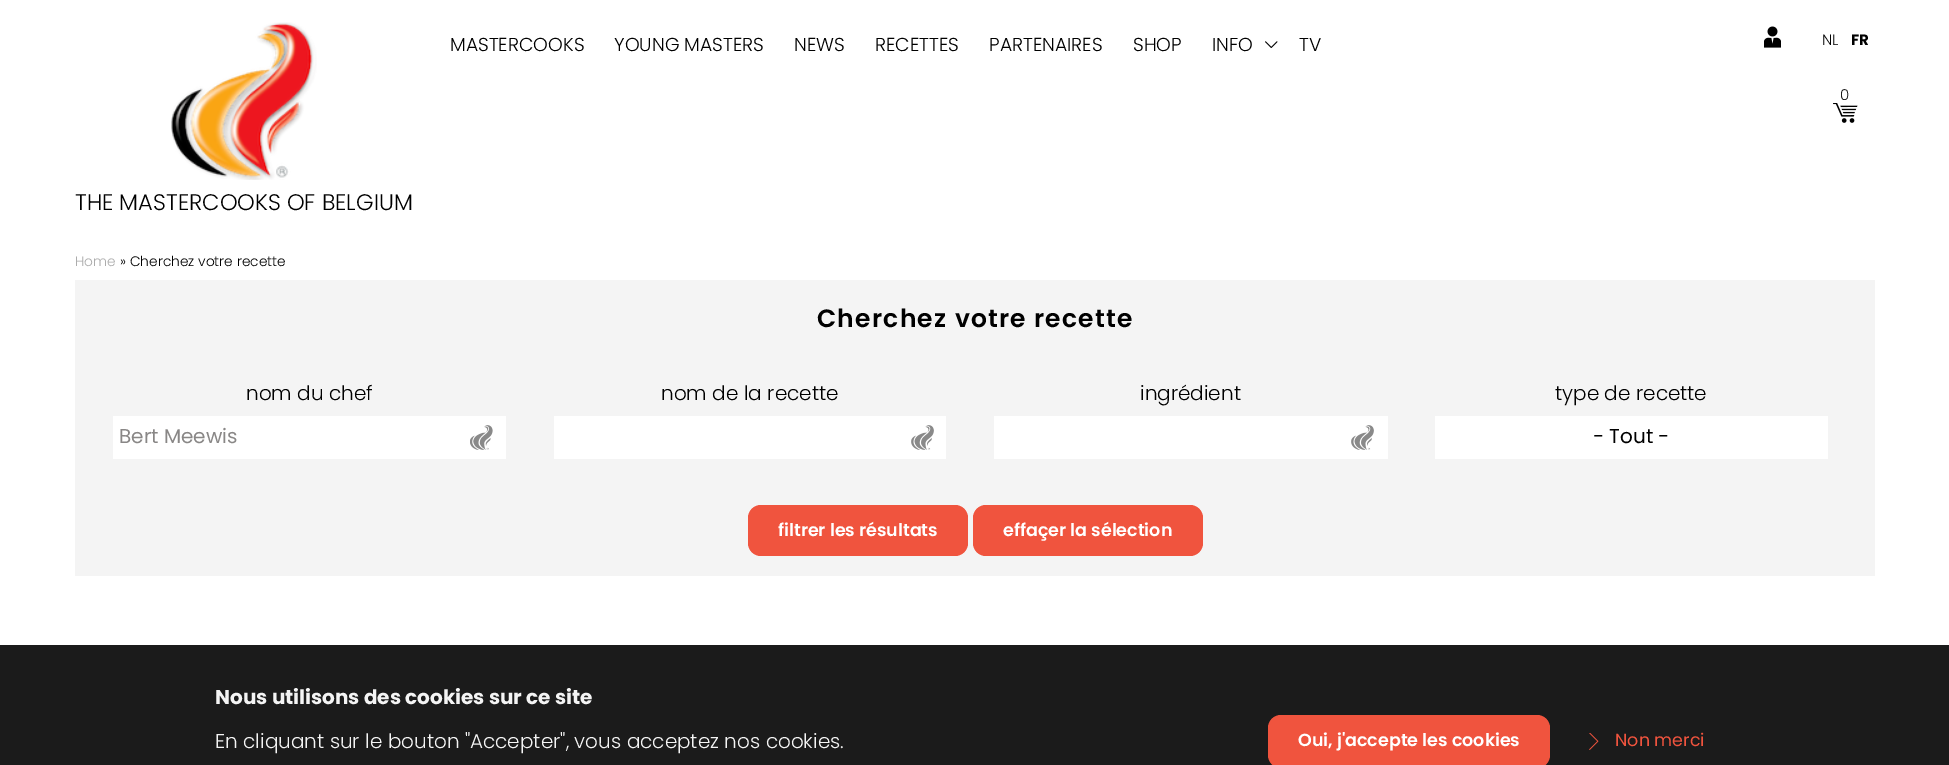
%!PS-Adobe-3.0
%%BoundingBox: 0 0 1949 765
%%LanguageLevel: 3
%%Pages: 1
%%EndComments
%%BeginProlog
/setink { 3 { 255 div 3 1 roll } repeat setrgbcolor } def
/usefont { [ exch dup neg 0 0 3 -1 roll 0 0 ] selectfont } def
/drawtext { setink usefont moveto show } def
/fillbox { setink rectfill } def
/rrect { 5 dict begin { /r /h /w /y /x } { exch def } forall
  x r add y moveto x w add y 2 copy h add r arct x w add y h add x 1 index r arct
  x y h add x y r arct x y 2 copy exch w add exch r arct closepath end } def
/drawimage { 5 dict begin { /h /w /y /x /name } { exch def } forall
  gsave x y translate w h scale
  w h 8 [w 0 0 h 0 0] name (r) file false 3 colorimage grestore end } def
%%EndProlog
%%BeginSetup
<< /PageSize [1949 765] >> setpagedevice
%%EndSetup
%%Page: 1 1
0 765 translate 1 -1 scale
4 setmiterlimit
0 0 1949 765 255 255 255 fillbox
(MASTERCOOKS) 450 51 /Poppins-Light 18.75 0 0 0 drawtext
(YOUNG MASTERS) 614 51 /Poppins-Light 18.75 0 0 0 drawtext
(NEWS) 794 51 /Poppins-Light 18.75 0 0 0 drawtext
(RECETTES) 875 51 /Poppins-Light 18.75 0 0 0 drawtext
(PARTENAIRES) 989 51 /Poppins-Light 18.75 0 0 0 drawtext
(SHOP) 1133 51 /Poppins-Light 18.75 0 0 0 drawtext
(assets/img1.rgb) 1265 41 13 7 drawimage
(INFO) 1212 51 /Poppins-Light 18.75 0 0 0 drawtext
(TV) 1299 51 /Poppins-Light 18.75 0 0 0 drawtext
(assets/img2.rgb) 171 22 146 158 drawimage
(THE MASTERCOOKS OF BELGIUM) 75 210 /Poppins-Light 22.5 0 0 0 drawtext
(assets/img3.rgb) 1764 26 17 22 drawimage
(NL) 1822 45 /Poppins-Light 15 0 0 0 drawtext
(FR) 1851 45 /Poppins-Bold 15 0 0 0 drawtext
(assets/img4.rgb) 1833 103 25 20 drawimage
(0) 1840 100 /Poppins-Light 15 27 27 27 drawtext
(Home) 75 266 /Poppins-Light 13.75 172 172 172 drawtext
(» Cherchez votre recette) 120 266 /Poppins-Light 13.75 0 0 0 drawtext
75 280 1800 296 244 244 244 fillbox
/Poppins-SemiBold 25 usefont
0 0 0 setink
817 327 moveto 1.25 0 (Cherchez votre recette) ashow
(nom du chef) 246 400 /Poppins-Light 20 0 0 0 drawtext
113 416 393 43 255 255 255 fillbox
(assets/img5.rgb) 470 425 23 25 drawimage
(Bert Meewis) 119 443 /Poppins-Regular 20 137 135 134 drawtext
(nom de la recette) 661 400 /Poppins-Light 20 0 0 0 drawtext
554 416 392 43 255 255 255 fillbox
(assets/img6.rgb) 911 425 23 25 drawimage
(ingrédient) 1140 400 /Poppins-Light 20 0 0 0 drawtext
994 416 394 43 255 255 255 fillbox
(assets/img6.rgb) 1351 425 23 25 drawimage
(type de recette) 1555 400 /Poppins-Light 20 0 0 0 drawtext
1435 416 393 43 255 255 255 fillbox
(- Tout -) 1593 443 /Poppins-Regular 20 0 0 0 drawtext
240 84 62 setink
748 505 220 51 13 rrect fill
(filtrer les résultats) 778 536 /Poppins-SemiBold 17.5 255 255 255 drawtext
240 84 62 setink
973 505 230 51 13 rrect fill
(effaçer la sélection) 1003 536 /Poppins-SemiBold 17.5 255 255 255 drawtext
0 645 1949 120 27 27 27 fillbox
(Nous utilisons des cookies sur ce site) 215 704 /Poppins-Bold 20 244 244 244 drawtext
(En cliquant sur le bouton "Accepter", vous acceptez nos cookies.) 215 748 /Poppins-Light 20 244 244 244 drawtext
240 84 62 setink
1268 715 282 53 13 rrect fill
(Oui, j'accepte les cookies) 1298 746 /Poppins-SemiBold 17.5 255 255 255 drawtext
(assets/img7.rgb) 1589 733 10 17 drawimage
(Non merci) 1615 746 /Poppins-Regular 17.5 240 84 62 drawtext
showpage
%%EOF
